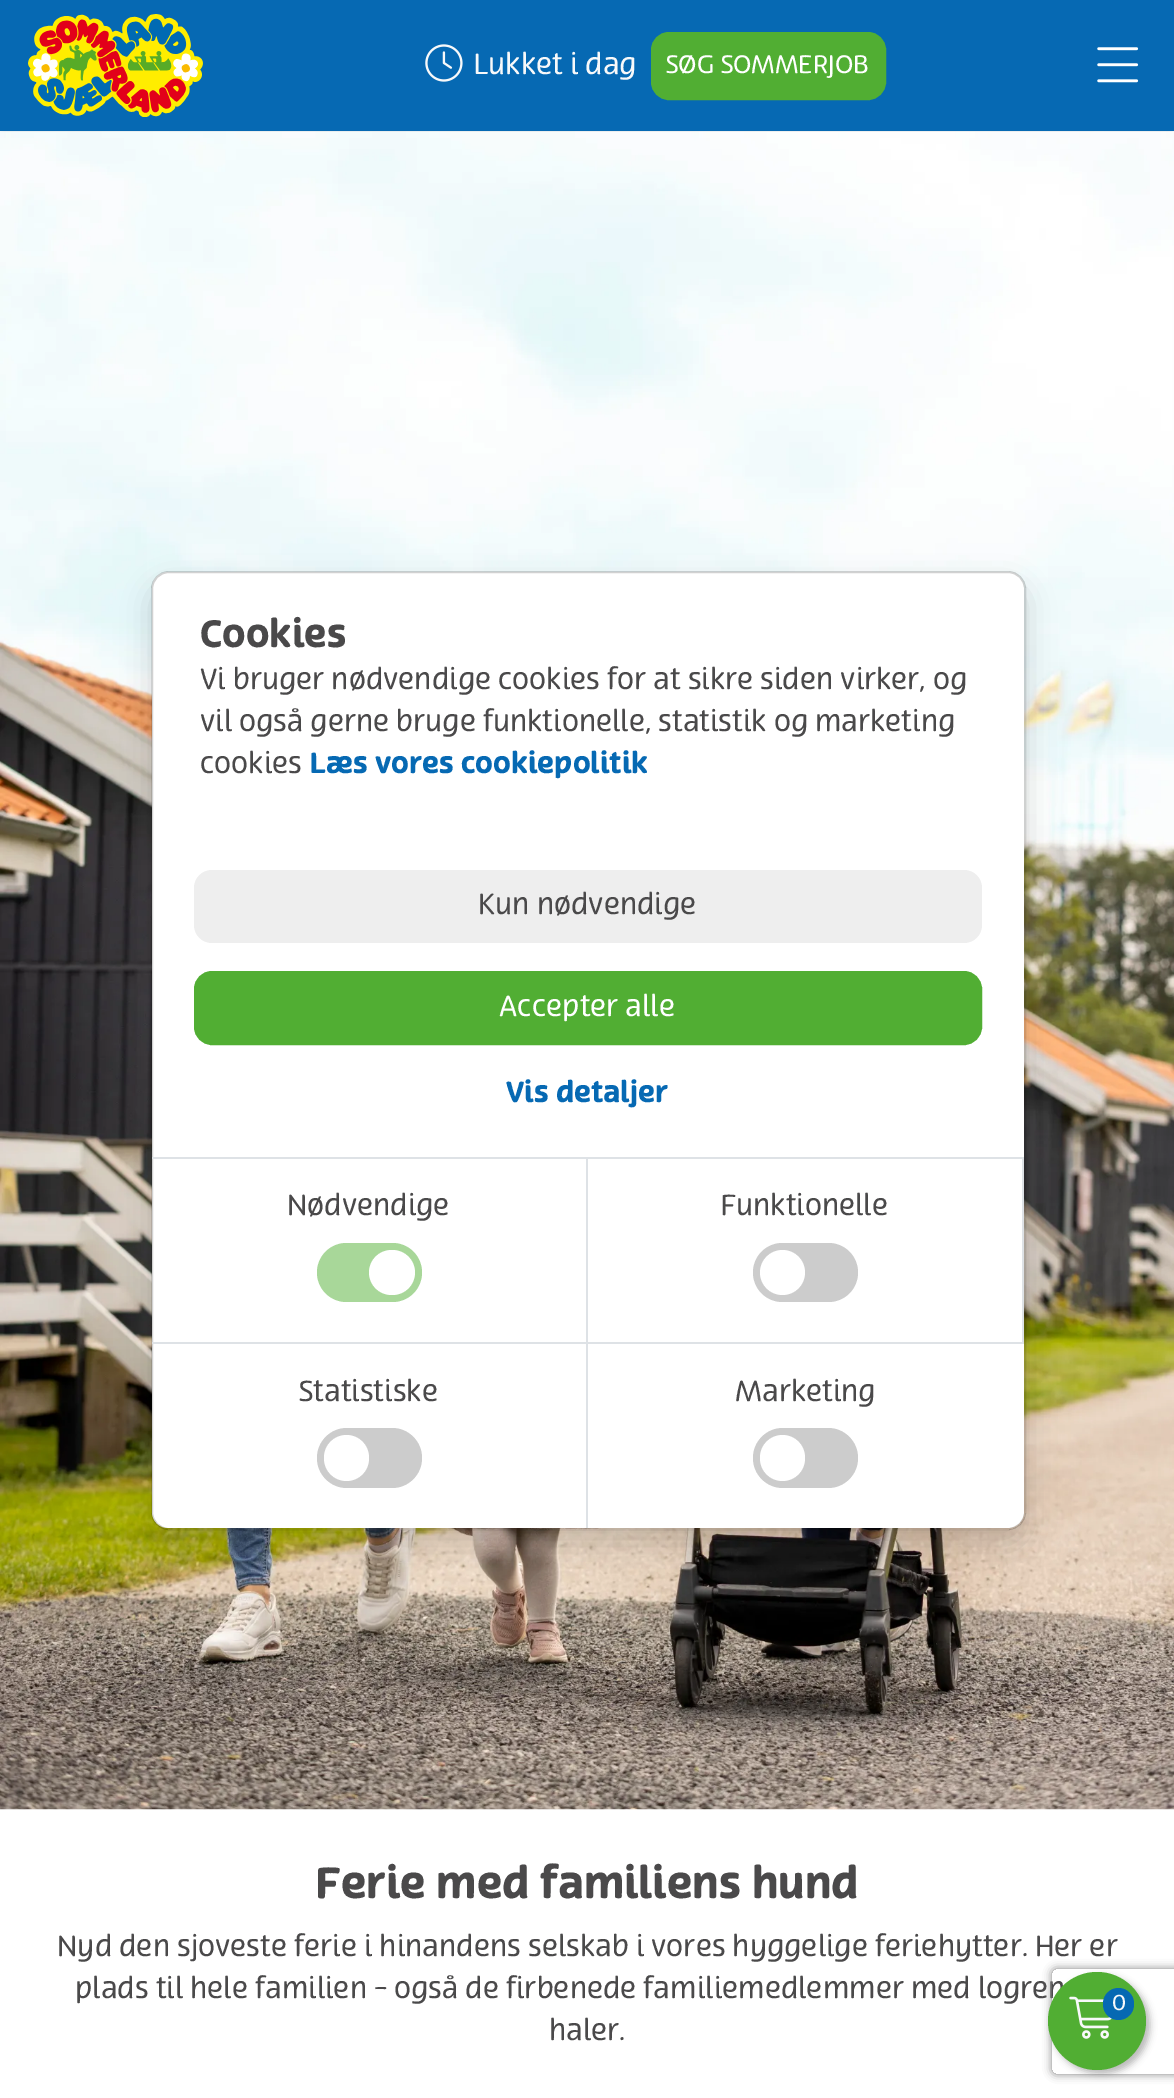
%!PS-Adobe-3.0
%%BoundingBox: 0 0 1174 2098
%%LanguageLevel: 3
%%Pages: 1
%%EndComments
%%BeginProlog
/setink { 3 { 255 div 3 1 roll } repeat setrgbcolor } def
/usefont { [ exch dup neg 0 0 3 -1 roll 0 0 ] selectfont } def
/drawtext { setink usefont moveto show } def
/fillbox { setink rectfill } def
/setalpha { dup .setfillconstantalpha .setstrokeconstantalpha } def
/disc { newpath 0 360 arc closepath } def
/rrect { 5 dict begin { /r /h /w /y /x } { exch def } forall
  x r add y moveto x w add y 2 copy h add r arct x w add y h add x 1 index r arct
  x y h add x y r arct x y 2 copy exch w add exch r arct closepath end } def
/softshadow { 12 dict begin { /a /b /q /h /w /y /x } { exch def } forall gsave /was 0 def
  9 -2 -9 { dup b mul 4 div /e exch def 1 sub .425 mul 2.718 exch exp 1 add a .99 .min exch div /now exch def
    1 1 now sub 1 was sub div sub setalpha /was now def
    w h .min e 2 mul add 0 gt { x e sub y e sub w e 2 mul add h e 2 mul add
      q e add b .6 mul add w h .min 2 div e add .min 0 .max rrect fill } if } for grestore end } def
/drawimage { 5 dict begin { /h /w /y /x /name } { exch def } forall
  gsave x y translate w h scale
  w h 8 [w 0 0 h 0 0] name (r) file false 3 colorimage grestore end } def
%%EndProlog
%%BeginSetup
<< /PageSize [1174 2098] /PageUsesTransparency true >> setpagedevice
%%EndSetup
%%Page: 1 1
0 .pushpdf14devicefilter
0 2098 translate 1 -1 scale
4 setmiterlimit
0 0 1174 2098 255 255 255 fillbox
117 117 117 setink
0 2 1174 131 0 3.5 0.5 softshadow
0 0 1174 131 6 105 179 fillbox
(assets/img1.rgb) 28 14 175 103 drawimage
(assets/img2.rgb) 425 44 38 38 drawimage
(Lukket i dag) 474 74 /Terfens-Regular 28 248 249 250 drawtext
81 174 51 setink
652 33 233 66 17 rrect gsave fill grestore
2 setlinewidth
stroke
(SØG SOMMERJOB) 666 73 /Terfens-Regular 24.5 255 255 255 drawtext
(assets/img3.rgb) 1097 47 42 36 drawimage
(assets/img4.rgb) 0 131 1174 1679 drawimage
gsave
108 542 moveto 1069 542 lineto 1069 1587 lineto 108 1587 lineto closepath 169 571 moveto 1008 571 lineto 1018 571 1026 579 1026 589 curveto 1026 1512 lineto 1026 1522 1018 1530 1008 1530 curveto 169 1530 lineto 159 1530 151 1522 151 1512 curveto 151 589 lineto 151 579 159 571 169 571 curveto closepath eoclip newpath
0 0 0 setink
151 585 875 959 18 14 0.15 softshadow
grestore
152 572 872 956 16 rrect fill
0.18 setalpha
0 0 0 setink
152 572 873 957 17 rrect stroke
1 setalpha
(Cookies) 200 647 /Terfens-SemiBold 37 74 73 74 drawtext
(Vi bruger nødvendige cookies for at sikre siden virker, og) 200 689 /Terfens-Regular 28 74 73 74 drawtext
(vil også gerne bruge funktionelle, statistik og marketing) 200 731 /Terfens-Regular 28 74 73 74 drawtext
(cookies) 200 773 /Terfens-Regular 28 74 73 74 drawtext
(Læs vores cookiepolitik) 310 773 /Terfens-SemiBold 28 6 105 179 drawtext
238 238 238 setink
194 870 788 73 18 rrect fill
(Kun nødvendige) 478 914 /Terfens-Regular 28 74 73 74 drawtext
81 174 51 setink
195 972 786 72 17 rrect gsave fill grestore
stroke
(Accepter alle) 499 1016 /Terfens-Regular 28 255 255 255 drawtext
(Vis detaljer) 506 1102 /Terfens-SemiBold 28 6 105 179 drawtext
152 1157 872 2 222 226 230 fillbox
586 1159 2 369 222 226 230 fillbox
152 1342 436 2 222 226 230 fillbox
(Nødvendige) 287 1215 /Terfens-Regular 28 74 73 74 drawtext
168 215 153 setink
317 1243 105 59 29.5 rrect fill
255 255 255 setink
369 1250 46 45 22.5 rrect fill
1022 1159 2 185 222 226 230 fillbox
588 1342 436 2 222 226 230 fillbox
(Funktionelle) 721 1215 /Terfens-Regular 28 74 73 74 drawtext
204 204 204 setink
753 1243 105 59 29.5 rrect fill
255 255 255 setink
782.5 1272.5 22.5 disc fill
(Statistiske) 299 1401 /Terfens-Regular 28 74 73 74 drawtext
204 204 204 setink
317 1428 105 60 30 rrect fill
255 255 255 setink
324 1435 45 46 22.5 rrect fill
(Marketing) 735 1401 /Terfens-Regular 28 74 73 74 drawtext
204 204 204 setink
753 1428 105 60 30 rrect fill
255 255 255 setink
760 1435 45 46 22.5 rrect fill
(Ferie med familiens hund) 316 1898 /Terfens-SemiBold 42 74 73 74 drawtext
(Nyd den sjoveste ferie i hinandens selskab i vores hyggelige feriehytter. Her er) 57 1956 /Terfens-Regular 28 74 73 74 drawtext
(plads til hele familien - også de firbenede familiemedlemmer med logren) 75 1998 /Terfens-Regular 28 74 73 74 drawtext
(haler.) 549 2040 /Terfens-Regular 28 74 73 74 drawtext
117 117 117 setink
1052 1976 98 98 49 3.5 0.5 softshadow
gsave
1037 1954 moveto 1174 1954 lineto 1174 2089 lineto 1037 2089 lineto closepath 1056 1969 moveto 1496 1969 lineto 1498 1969 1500 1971 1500 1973 curveto 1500 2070 lineto 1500 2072 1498 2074 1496 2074 curveto 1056 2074 lineto 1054 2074 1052 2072 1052 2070 curveto 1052 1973 lineto 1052 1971 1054 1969 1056 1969 curveto closepath eoclip newpath
128 128 128 setink
1052 1969 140 105 4 4.5 1 softshadow
grestore
81 174 51 setink
1097 2021 49 disc fill
(assets/img5.rgb) 1069 1996 44 43 drawimage
6 105 179 setink
1103 1988 31 32 15.5 rrect fill
(0) 1112 2010 /Terfens-Regular 21 248 249 250 drawtext
.poppdf14devicefilter showpage
%%EOF
